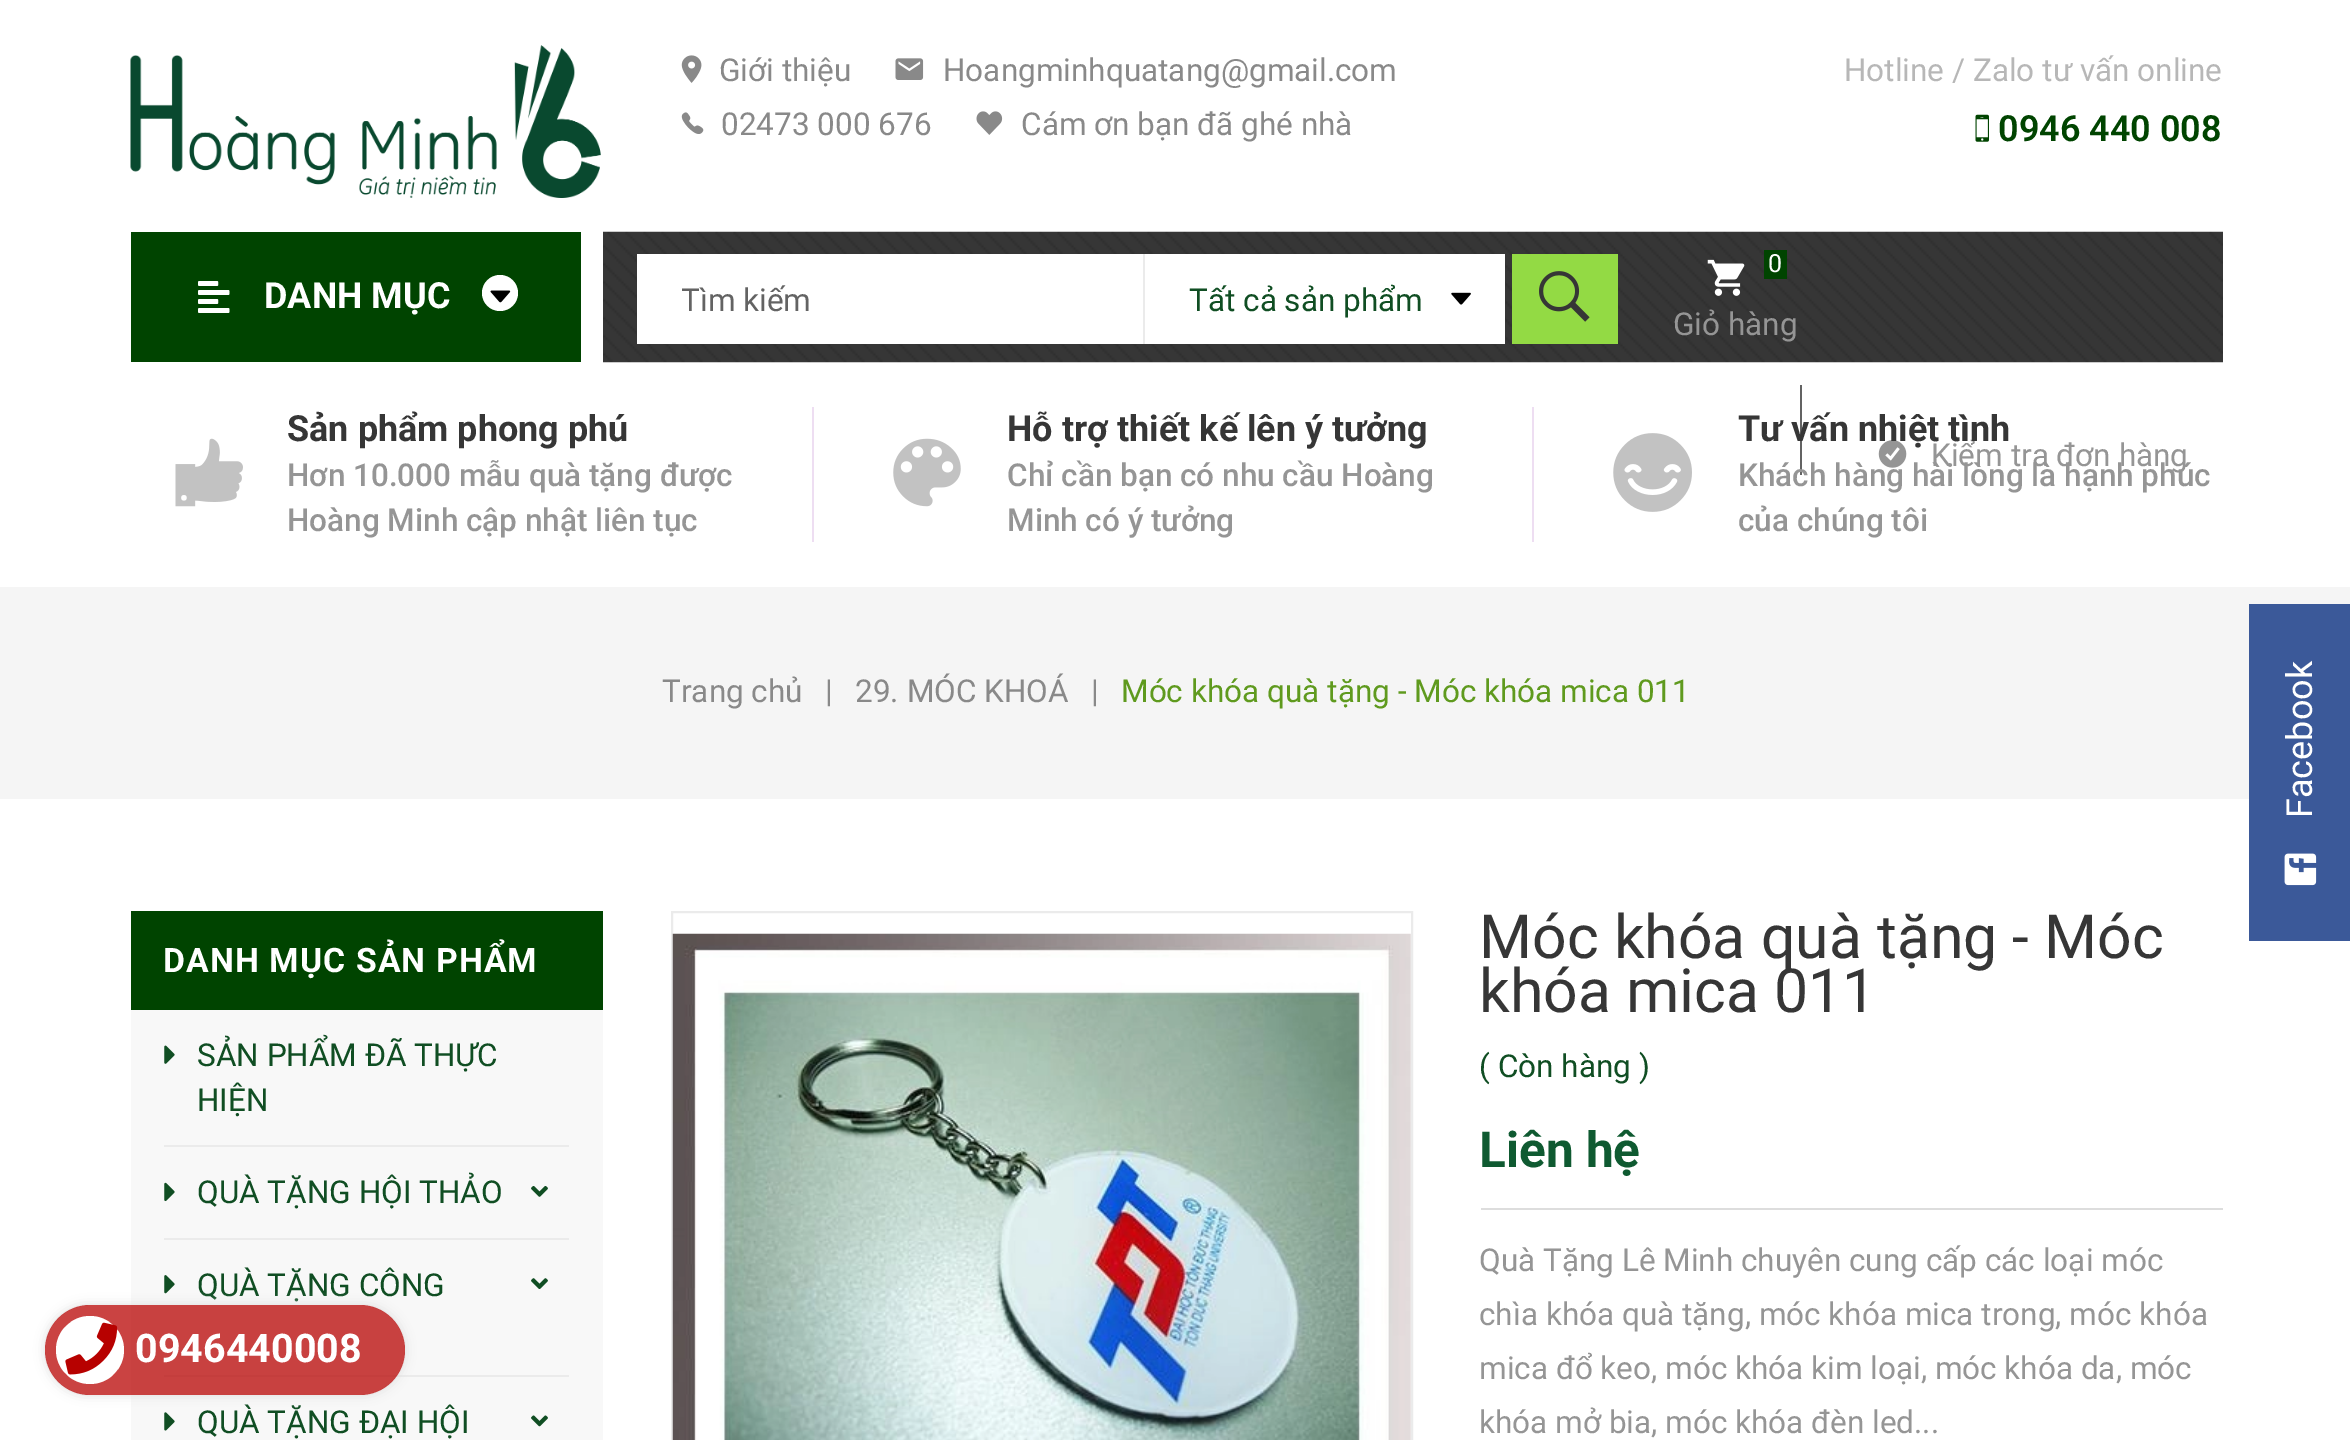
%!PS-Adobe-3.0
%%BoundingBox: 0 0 2350 1440
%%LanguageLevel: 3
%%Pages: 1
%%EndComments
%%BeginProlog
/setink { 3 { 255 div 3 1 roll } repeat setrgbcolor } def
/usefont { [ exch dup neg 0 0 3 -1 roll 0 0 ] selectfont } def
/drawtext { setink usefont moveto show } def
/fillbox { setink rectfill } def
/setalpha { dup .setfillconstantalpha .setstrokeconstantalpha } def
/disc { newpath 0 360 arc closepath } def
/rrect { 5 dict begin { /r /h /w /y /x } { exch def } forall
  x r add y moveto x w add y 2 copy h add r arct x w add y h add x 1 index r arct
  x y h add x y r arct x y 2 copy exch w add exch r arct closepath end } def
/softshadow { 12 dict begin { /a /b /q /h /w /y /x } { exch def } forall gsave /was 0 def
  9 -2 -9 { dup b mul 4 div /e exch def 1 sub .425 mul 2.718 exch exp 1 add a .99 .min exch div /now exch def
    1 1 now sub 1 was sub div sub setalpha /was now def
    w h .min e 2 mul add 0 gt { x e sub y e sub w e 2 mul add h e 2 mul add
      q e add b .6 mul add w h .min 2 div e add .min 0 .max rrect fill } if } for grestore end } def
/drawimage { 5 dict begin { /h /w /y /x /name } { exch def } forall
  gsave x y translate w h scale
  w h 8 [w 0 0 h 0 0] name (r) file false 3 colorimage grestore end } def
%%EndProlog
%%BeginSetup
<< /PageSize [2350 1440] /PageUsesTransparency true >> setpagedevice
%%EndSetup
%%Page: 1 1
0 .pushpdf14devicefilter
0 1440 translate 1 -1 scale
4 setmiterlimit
0 0 2350 1440 255 255 255 fillbox
(assets/img1.rgb) 130 45 471 153 drawimage
(assets/img2.rgb) 681 55 21 28 drawimage
(Giới thiệu) 719 81 /Roboto-Regular 31.5 137 137 137 drawtext
(assets/img3.rgb) 895 58 29 22 drawimage
(Hoangminhquatang@gmail.com) 943 81 /Roboto-Regular 31.5 137 137 137 drawtext
(assets/img4.rgb) 681 112 23 22 drawimage
(02473 000 676) 721 135 /Roboto-Regular 31.5 137 137 137 drawtext
(assets/img5.rgb) 976 111 27 24 drawimage
(Cám ơn bạn đã ghé nhà) 1021 135 /Roboto-Regular 31.5 137 137 137 drawtext
(Hotline / Zalo tư vấn online) 1844 81 /Roboto-Regular 31.5 183 183 183 drawtext
(assets/img6.rgb) 1975 114 14 28 drawimage
(0946 440 008) 1998 141 /Roboto-SemiBold 36 0 68 0 drawtext
131 232 450 130 0 68 0 fillbox
(assets/img7.rgb) 198 281 32 32 drawimage
(DANH MỤC) 264 308 /Roboto-Bold 36 255 255 255 drawtext
500 293 18 disc fill
(assets/img8.rgb) 490 290 21 13 drawimage
(assets/img9.rgb) 603 231 1620 132 drawimage
637 254 506 90 255 255 255 fillbox
gsave
682 281 362 36 rectclip
(Tìm kiếm) 681 311 /Roboto-Regular 31.5 99 99 99 drawtext
grestore
1145 254 360 90 255 255 255 fillbox
1143 254 2 90 235 235 235 fillbox
(Tất cả sản phẩm) 1189 311 /Roboto-Regular 31.5 16 78 35 drawtext
(assets/img10.rgb) 1451 292 20 13 drawimage
1512 254 106 90 147 218 68 fillbox
(assets/img11.rgb) 1539 271 51 51 drawimage
(assets/img12.rgb) 1707 259 38 37 drawimage
1764 250 23 29 0 68 0 fillbox
(0) 1768 272 /Roboto-Regular 25 255 255 255 drawtext
(Giỏ hàng) 1673 335 /Roboto-Regular 31.5 149 149 149 drawtext
1800 385 2 90 99 99 99 fillbox
(assets/img13.rgb) 1878 440 29 28 drawimage
(Kiểm tra đơn hàng) 1931 466 /Roboto-Regular 31.5 149 149 149 drawtext
812 407 2 135 238 222 242 fillbox
(assets/img14.rgb) 175 438 68 69 drawimage
(Sản phẩm phong phú) 287 441 /Roboto-Bold 36 54 54 54 drawtext
(Hơn 10.000 mẫu quà tặng được) 287 486 /Roboto-Medium 31.5 149 149 149 drawtext
(Hoàng Minh cập nhật liên tục) 287 531 /Roboto-Medium 31.5 149 149 149 drawtext
1532 407 2 135 238 222 242 fillbox
(assets/img15.rgb) 893 438 68 69 drawimage
(Hỗ trợ thiết kế lên ý tưởng) 1007 441 /Roboto-Bold 36 54 54 54 drawtext
(Chỉ cần bạn có nhu cầu Hoàng) 1007 486 /Roboto-Medium 31.5 149 149 149 drawtext
(Minh có ý tưởng) 1007 531 /Roboto-Medium 31.5 149 149 149 drawtext
(assets/img16.rgb) 1613 433 79 79 drawimage
(Tư vấn nhiệt tình) 1738 441 /Roboto-Bold 36 54 54 54 drawtext
(Khách hàng hài lòng là hạnh phúc) 1738 486 /Roboto-Medium 31.5 149 149 149 drawtext
(của chúng tôi) 1738 531 /Roboto-Medium 31.5 149 149 149 drawtext
0 587 2350 212 245 245 245 fillbox
(Trang chủ) 662 702 /Roboto-Regular 31.5 137 137 137 drawtext
(|) 825 702 /Roboto-Regular 31.5 137 137 137 drawtext
(29. MÓC KHOÁ) 855 702 /Roboto-Regular 31.5 137 137 137 drawtext
(|) 1091 702 /Roboto-Regular 31.5 137 137 137 drawtext
(Móc khóa quà tặng - Móc khóa mica 011) 1121 702 /Roboto-Regular 31.5 95 154 30 drawtext
2249 604 101 337 59 89 153 fillbox
/Roboto-Regular 36 usefont
255 255 255 setink
gsave 2312 818 translate -90 rotate 0 0 moveto (Facebook) show grestore
(assets/img17.rgb) 2284 853 33 33 drawimage
131 911 472 99 0 68 0 fillbox
/Roboto-Bold 33.75 usefont
255 255 255 setink
163 972 moveto 1.1 0 (DANH MỤC SẢN PHẨM) ashow
131 1010 472 430 248 248 248 fillbox
164 1145 405 2 235 235 235 fillbox
(assets/img18.rgb) 164 1045 11 19 drawimage
(SẢN PHẨM ĐÃ THỰC) 197 1066 /Roboto-Regular 31.5 16 78 35 drawtext
(HIỆN) 197 1111 /Roboto-Regular 31.5 16 78 35 drawtext
164 1238 405 2 235 235 235 fillbox
(assets/img19.rgb) 164 1182 11 20 drawimage
(QUÀ TẶNG HỘI THẢO) 197 1203 /Roboto-Regular 31.5 16 78 35 drawtext
(assets/img20.rgb) 531 1186 17 11 drawimage
164 1375 405 2 235 235 235 fillbox
(assets/img21.rgb) 164 1275 11 19 drawimage
(QUÀ TẶNG CÔNG) 197 1296 /Roboto-Regular 31.5 16 78 35 drawtext
(assets/img22.rgb) 531 1278 17 11 drawimage
(assets/img23.rgb) 164 1412 11 19 drawimage
(QUÀ TẶNG ĐẠI HỘI) 197 1433 /Roboto-Regular 31.5 16 78 35 drawtext
(assets/img24.rgb) 531 1415 17 12 drawimage
235 235 235 setink
2 setlinewidth
672 912 740 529 rectstroke
(assets/img25.rgb) 672 933 739 507 drawimage
(Móc khóa quà tặng - Móc) 1479 958 /Roboto-Regular 60.75 54 54 54 drawtext
(khóa mica 011) 1479 1012 /Roboto-Regular 60.75 54 54 54 drawtext
(\( Còn hàng \)) 1479 1077 /Roboto-Regular 31.5 16 78 35 drawtext
1481 1208 742 2 221 221 221 fillbox
(Liên hệ) 1479 1167 /Roboto-Bold 49.5 15 90 49 drawtext
(Quà Tặng Lê Minh chuyên cung cấp các loại móc) 1479 1271 /Roboto-Regular 31.5 149 149 149 drawtext
(chìa khóa quà tặng, móc khóa mica trong, móc khóa) 1479 1325 /Roboto-Regular 31.5 149 149 149 drawtext
(mica đổ keo, móc khóa kim loại, móc khóa da, móc) 1479 1379 /Roboto-Regular 31.5 149 149 149 drawtext
(khóa mở bia, móc khóa đèn led...) 1479 1433 /Roboto-Regular 31.5 149 149 149 drawtext
gsave
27 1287 moveto 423 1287 lineto 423 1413 lineto 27 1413 lineto closepath 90 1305 moveto 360 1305 lineto 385 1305 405 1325 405 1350 curveto 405 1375 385 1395 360 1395 curveto 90 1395 lineto 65 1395 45 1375 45 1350 curveto 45 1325 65 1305 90 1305 curveto closepath eoclip newpath
221 221 221 setink
45 1305 360 90 45 5.5 1 softshadow
grestore
0.74 setalpha
183 1 0 setink
45 1305 360 90 45 rrect fill
1 setalpha
255 255 255 setink
90 1350 34 disc fill
(assets/img26.rgb) 65 1322 53 53 drawimage
(0946440008) 135 1362 /Roboto-Bold 39.5 255 255 255 drawtext
.poppdf14devicefilter showpage
%%EOF
